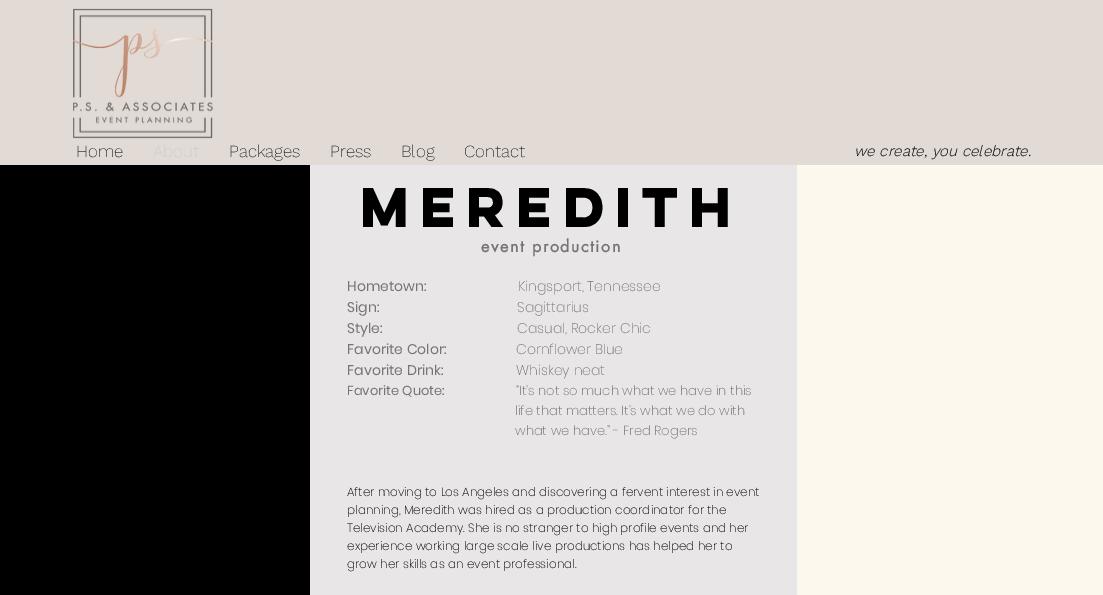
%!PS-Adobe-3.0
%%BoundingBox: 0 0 1103 595
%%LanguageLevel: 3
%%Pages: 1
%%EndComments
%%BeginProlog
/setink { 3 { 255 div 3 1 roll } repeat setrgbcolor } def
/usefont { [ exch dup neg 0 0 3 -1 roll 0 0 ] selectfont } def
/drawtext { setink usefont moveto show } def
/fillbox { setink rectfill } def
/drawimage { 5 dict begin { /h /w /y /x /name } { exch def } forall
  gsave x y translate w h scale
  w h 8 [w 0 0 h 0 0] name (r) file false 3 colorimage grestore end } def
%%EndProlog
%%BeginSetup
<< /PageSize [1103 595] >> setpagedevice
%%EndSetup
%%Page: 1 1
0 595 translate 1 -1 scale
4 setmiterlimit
0 0 1103 595 226 219 213 fillbox
(assets/img1.rgb) 73 8 140 131 drawimage
(Home) 76 157 /WorkSans-ExtraLight 17 0 0 0 drawtext
(About) 153 157 /WorkSans-ExtraLight 17 199 199 199 drawtext
(Packages) 229 157 /WorkSans-ExtraLight 17 0 0 0 drawtext
(Press) 330 157 /WorkSans-ExtraLight 17 0 0 0 drawtext
(Blog) 401 157 /WorkSans-ExtraLight 17 0 0 0 drawtext
(Contact) 464 157 /WorkSans-ExtraLight 17 0 0 0 drawtext
(we create, you celebrate.) 854 156 /WorkSans-LightItalic 15 0 0 0 drawtext
0 165 310 430 0 0 0 fillbox
310 165 487 430 232 230 230 fillbox
(Meredith) 360 227 /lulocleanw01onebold-Bold 50 0 0 0 drawtext
/futura-Bold 16 usefont
117 117 117 setink
481 252 moveto 1.6 0 (event production) ashow
(Hometown:) 347 291 /Poppins-Regular 14 117 117 117 drawtext
(Kingsport, Tennessee) 518 291 /Poppins-ExtraLight 14 117 117 117 drawtext
(Sign:) 347 312 /Poppins-Regular 14 117 117 117 drawtext
(Sagittarius) 517 312 /Poppins-ExtraLight 14 117 117 117 drawtext
(Style:) 347 333 /Poppins-Regular 14 117 117 117 drawtext
(Casual, Rocker Chic) 517 333 /Poppins-ExtraLight 14 117 117 117 drawtext
(Favorite Color:) 347 354 /Poppins-Regular 14 117 117 117 drawtext
(Cornflower Blue) 516 354 /Poppins-ExtraLight 14 117 117 117 drawtext
(Favorite Drink:) 347 375 /Poppins-Regular 14 117 117 117 drawtext
(Whiskey neat) 516 375 /Poppins-ExtraLight 14 117 117 117 drawtext
(Favorite Quote:) 347 395 /Poppins-Regular 13 117 117 117 drawtext
(“It’s not so much what we have in this) 516 395 /Poppins-ExtraLight 13 117 117 117 drawtext
(life that matters. It’s what we do with) 515 415 /Poppins-ExtraLight 13 117 117 117 drawtext
(what we have.” - Fred Rogers) 515 435 /Poppins-ExtraLight 13 117 117 117 drawtext
(After moving to Los Angeles and discovering a fervent interest in event) 347 496 /Poppins-ExtraLight 12 0 0 0 drawtext
(planning, Meredith was hired as a production coordinator for the) 347 514 /Poppins-ExtraLight 12 0 0 0 drawtext
(Television Academy. She is no stranger to high profile events and her) 347 532 /Poppins-ExtraLight 12 0 0 0 drawtext
(experience working large scale live productions has helped her to) 347 550 /Poppins-ExtraLight 12 0 0 0 drawtext
(grow her skills as an event professional.) 347 568 /Poppins-ExtraLight 12 0 0 0 drawtext
797 165 306 430 252 248 237 fillbox
showpage
%%EOF
